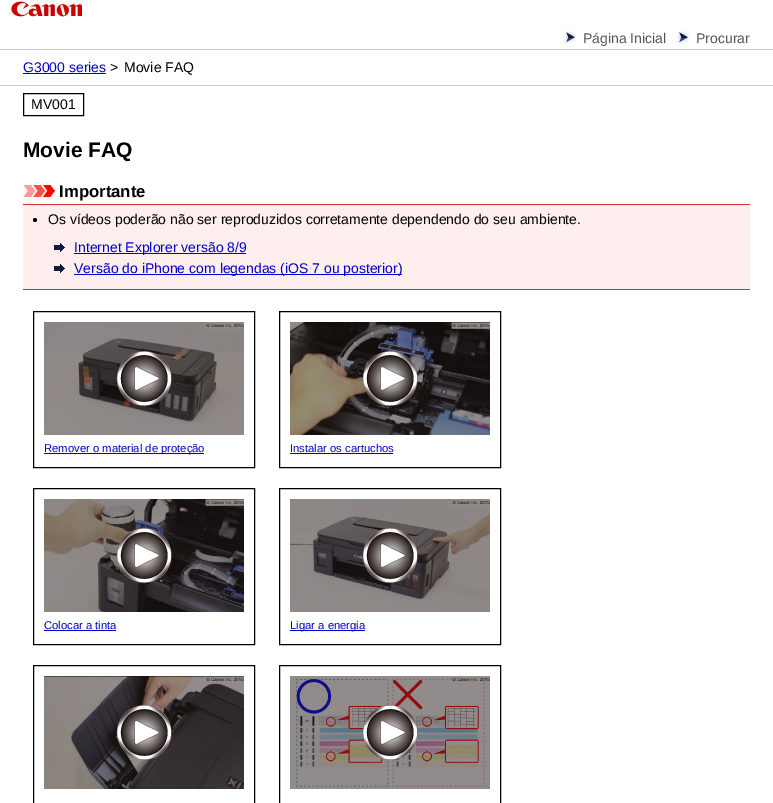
%!PS-Adobe-3.0
%%BoundingBox: 0 0 773 803
%%LanguageLevel: 3
%%Pages: 1
%%EndComments
%%BeginProlog
/setink { 3 { 255 div 3 1 roll } repeat setrgbcolor } def
/usefont { [ exch dup neg 0 0 3 -1 roll 0 0 ] selectfont } def
/drawtext { setink usefont moveto show } def
/fillbox { setink rectfill } def
/disc { newpath 0 360 arc closepath } def
/drawimage { 5 dict begin { /h /w /y /x /name } { exch def } forall
  gsave x y translate w h scale
  w h 8 [w 0 0 h 0 0] name (r) file false 3 colorimage grestore end } def
%%EndProlog
%%BeginSetup
<< /PageSize [773 803] >> setpagedevice
%%EndSetup
%%Page: 1 1
0 803 translate 1 -1 scale
4 setmiterlimit
0 0 773 803 255 255 255 fillbox
(assets/img1.rgb) 11 1 71 16 drawimage
0 85 773 1 204 204 204 fillbox
(assets/img2.rgb) 564 31 12 12 drawimage
(Página Inicial) 583 43 /LiberationSans-Regular 14 85 85 85 drawtext
(assets/img2.rgb) 677 31 12 12 drawimage
(Procurar) 696 43 /LiberationSans-Regular 14 85 85 85 drawtext
0 49 773 1 204 204 204 fillbox
(G3000 series) 23 72 /LiberationSans-Regular 14 0 0 204 drawtext
23 73 83 1 0 0 204 fillbox
(>) 110 72 /LiberationSans-Regular 14 0 0 0 drawtext
(Movie FAQ) 124 72 /LiberationSans-Regular 14 0 0 0 drawtext
23.5 93.5 60 22 rectstroke
(MV001) 31 109 /LiberationSans-Regular 14 0 0 0 drawtext
(Movie FAQ) 23 157 /LiberationSans-Bold 21 0 0 0 drawtext
(assets/img3.rgb) 23 185 32 12 drawimage
(Importante) 59 197 /LiberationSans-Bold 16.75 0 0 0 drawtext
23 205 727 84 255 238 238 fillbox
23 204 727 1 204 51 51 fillbox
23 289 727 1 204 51 51 fillbox
0 0 0 setink
35 220 2 disc fill
(Os vídeos poderão não ser reproduzidos corretamente dependendo do seu ambiente.) 48 224 /LiberationSans-Regular 14 0 0 0 drawtext
(assets/img4.rgb) 54 243 11 9 drawimage
74 253 172 1 0 0 204 fillbox
(Internet Explorer versão 8/9) 74 252 /LiberationSans-Regular 14 0 0 204 drawtext
(assets/img4.rgb) 54 264 11 9 drawimage
74 274 328 1 0 0 204 fillbox
(Versão do iPhone com legendas \(iOS 7 ou posterior\)) 74 273 /LiberationSans-Regular 14 0 0 204 drawtext
0 0 0 setink
33.5 311.5 221 156 rectstroke
(assets/img5.rgb) 44 322 200 113 drawimage
44 453 160 1 0 0 204 fillbox
(Remover o material de proteção) 44 452 /LiberationSans-Regular 11.25 0 0 204 drawtext
0 0 0 setink
279.5 311.5 221 156 rectstroke
(assets/img6.rgb) 290 322 200 113 drawimage
(Instalar os cartuchos) 290 452 /LiberationSans-Regular 11.25 0 0 204 drawtext
290 453 103 1 0 0 204 fillbox
0 0 0 setink
33.5 488.5 221 156 rectstroke
(assets/img7.rgb) 44 499 200 113 drawimage
(Colocar a tinta) 44 629 /LiberationSans-Regular 11.25 0 0 204 drawtext
44 630 72 1 0 0 204 fillbox
0 0 0 setink
279.5 488.5 221 156 rectstroke
(assets/img8.rgb) 290 499 200 113 drawimage
290 630 75 1 0 0 204 fillbox
(Ligar a energia) 290 629 /LiberationSans-Regular 11.25 0 0 204 drawtext
0 0 0 setink
33.5 665.5 221 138 rectstroke
(assets/img9.rgb) 44 676 200 113 drawimage
279.5 665.5 221 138 rectstroke
(assets/img10.rgb) 290 676 200 113 drawimage
showpage
%%EOF
